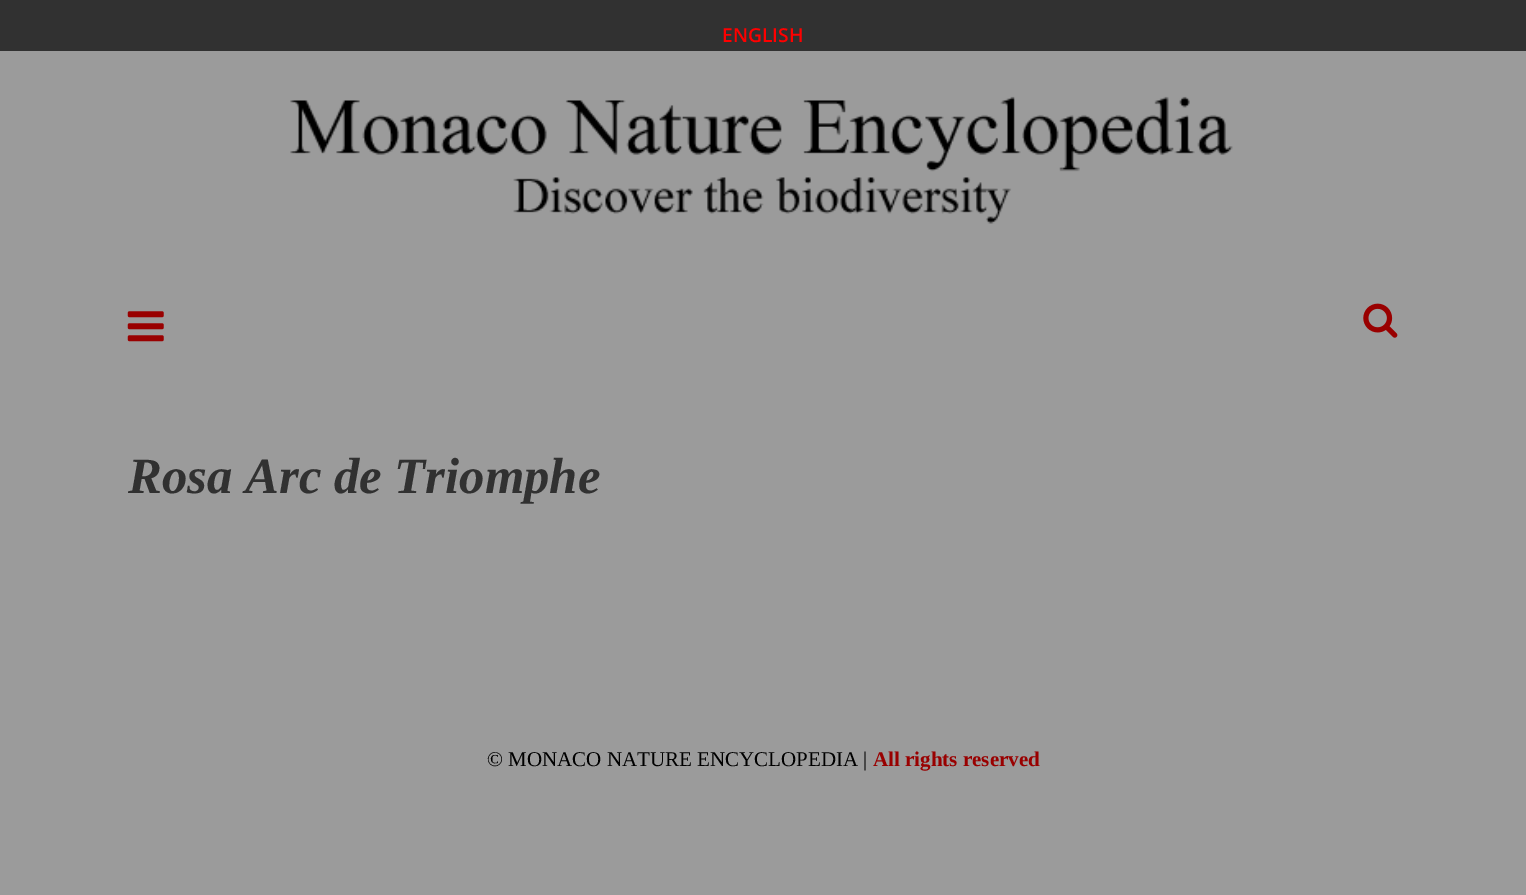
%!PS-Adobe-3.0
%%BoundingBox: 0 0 1526 895
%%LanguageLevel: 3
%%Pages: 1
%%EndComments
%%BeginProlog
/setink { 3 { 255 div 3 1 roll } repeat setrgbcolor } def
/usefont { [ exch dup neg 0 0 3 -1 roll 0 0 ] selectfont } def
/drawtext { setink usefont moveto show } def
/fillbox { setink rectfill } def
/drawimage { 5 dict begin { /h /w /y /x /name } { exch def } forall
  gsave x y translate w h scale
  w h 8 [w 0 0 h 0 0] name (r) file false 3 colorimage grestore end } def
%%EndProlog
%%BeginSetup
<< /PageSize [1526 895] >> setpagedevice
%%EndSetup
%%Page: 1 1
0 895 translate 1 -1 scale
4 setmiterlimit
0 0 1526 895 155 155 155 fillbox
0 0 1526 51 49 49 49 fillbox
(ENGLISH) 722 42 /OpenSans-SemiBold 19.25 255 0 0 drawtext
(assets/img1.rgb) 290 96 943 128 drawimage
(assets/img2.rgb) 127 311 37 31 drawimage
(assets/img3.rgb) 1363 303 35 35 drawimage
(Rosa Arc de Triomphe) 128 493 /LiberationSerif-BoldItalic 50.75 49 49 49 drawtext
(© MONACO NATURE ENCYCLOPEDIA |) 487 766 /LiberationSerif-Regular 21 0 0 0 drawtext
(All rights reserved) 873 766 /LiberationSerif-Bold 21 153 0 0 drawtext
showpage
%%EOF
